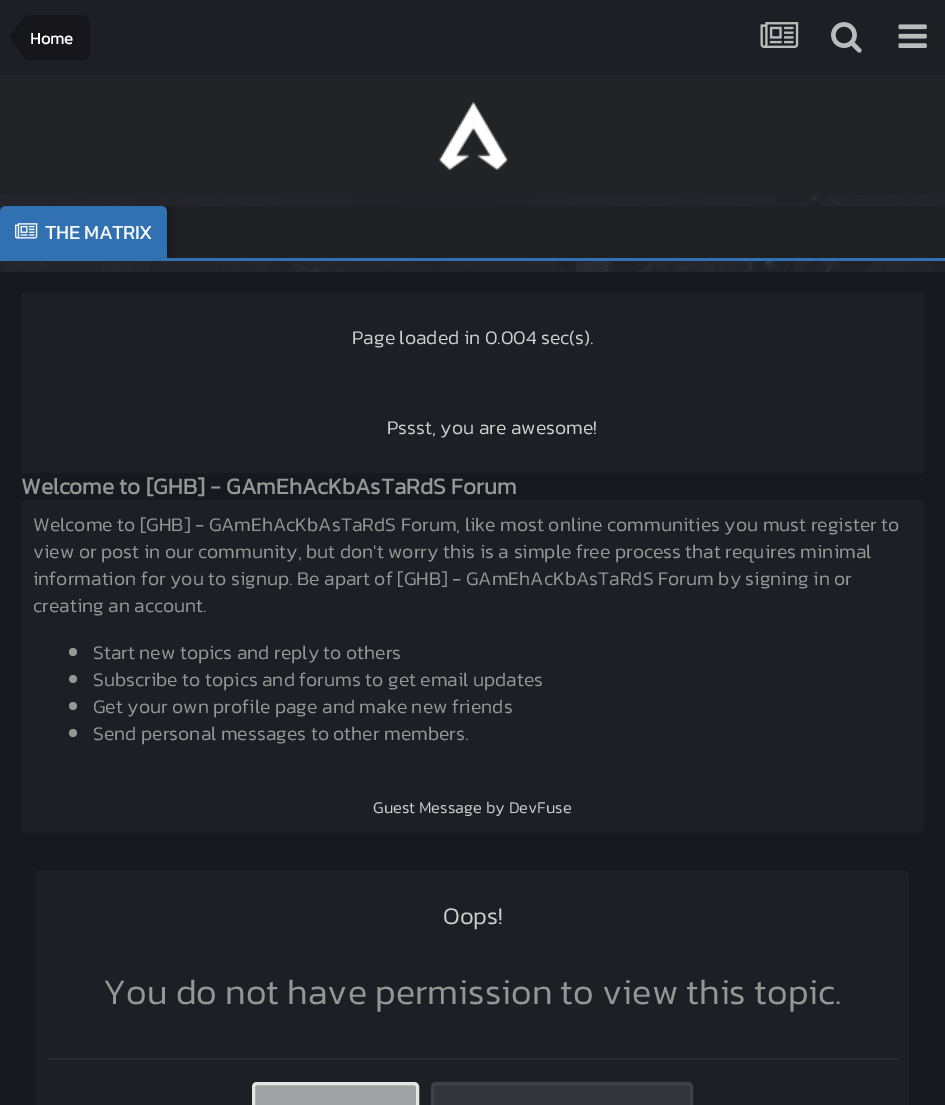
%!PS-Adobe-3.0
%%BoundingBox: 0 0 945 1105
%%LanguageLevel: 3
%%Pages: 1
%%EndComments
%%BeginProlog
/setink { 3 { 255 div 3 1 roll } repeat setrgbcolor } def
/usefont { [ exch dup neg 0 0 3 -1 roll 0 0 ] selectfont } def
/drawtext { setink usefont moveto show } def
/fillbox { setink rectfill } def
/setalpha { dup .setfillconstantalpha .setstrokeconstantalpha } def
/disc { newpath 0 360 arc closepath } def
/rrect { 5 dict begin { /r /h /w /y /x } { exch def } forall
  x r add y moveto x w add y 2 copy h add r arct x w add y h add x 1 index r arct
  x y h add x y r arct x y 2 copy exch w add exch r arct closepath end } def
/softshadow { 12 dict begin { /a /b /q /h /w /y /x } { exch def } forall gsave /was 0 def
  9 -2 -9 { dup b mul 4 div /e exch def 1 sub .425 mul 2.718 exch exp 1 add a .99 .min exch div /now exch def
    1 1 now sub 1 was sub div sub setalpha /was now def
    w h .min e 2 mul add 0 gt { x e sub y e sub w e 2 mul add h e 2 mul add
      q e add b .6 mul add w h .min 2 div e add .min 0 .max rrect fill } if } for grestore end } def
/drawimage { 5 dict begin { /h /w /y /x /name } { exch def } forall
  gsave x y translate w h scale
  w h 8 [w 0 0 h 0 0] name (r) file false 3 colorimage grestore end } def
%%EndProlog
%%BeginSetup
<< /PageSize [945 1105] /PageUsesTransparency true >> setpagedevice
%%EndSetup
%%Page: 1 1
0 .pushpdf14devicefilter
0 1105 translate 1 -1 scale
4 setmiterlimit
0 0 945 1105 255 255 255 fillbox
(assets/img1.rgb) 0 195 945 77 drawimage
0 0 945 75 30 31 36 fillbox
23 23 27 setink
30 15 moveto 82 15 lineto 86.5 15 90 18.5 90 23 curveto 90 52 lineto 90 56.5 86.5 60 82 60 curveto 30 60 lineto closepath fill
10.5 39 moveto 10 37.5 lineto 30 37.5 lineto 30 60 lineto 27 60 23.5 58 21 54 curveto closepath fill
0.25 setalpha
0 0 0 setink
30 15 moveto 30 37.5 lineto 10 37.5 lineto 10.5 36 lineto 21 21 lineto 23.5 17 27 15 30 15 curveto closepath fill
1 setalpha
(Home) 30 44 /Kanit-Bold 16.5 255 255 255 drawtext
(assets/img2.rgb) 760 22 39 26 drawimage
(assets/img3.rgb) 831 22 31 31 drawimage
(assets/img4.rgb) 898 24 29 24 drawimage
0 75 945 120 34 35 39 fillbox
(assets/img5.rgb) 439 101 69 69 drawimage
0 206 945 52 30 32 36 fillbox
0 258 945 3 49 112 177 fillbox
gsave
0 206 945 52 rectclip
0 0 0 setink
11 209 160 46 3 5 0.3 softshadow
grestore
6 206 moveto 161 206 lineto 164.5 206 167 208.5 167 212 curveto 167 258 lineto 0 258 lineto 0 212 lineto 0 208.5 2.5 206 6 206 curveto closepath fill
(assets/img6.rgb) 15 223 23 16 drawimage
(THE MATRIX) 45 239 /Kanit-Bold 19.5 248 249 250 drawtext
0 272 945 833 24 25 30 fillbox
21 293 903 180 30 31 36 fillbox
(Page loaded in 0.004 sec\(s\).) 352 344 /Kanit-Light 19.5 206 206 206 drawtext
(Pssst, you are awesome!) 387 434 /Kanit-Light 19.5 206 206 206 drawtext
(Welcome to [GHB] - GAmEhAcKbAsTaRdS Forum) 21 494 /Kanit-Bold 22.8 150 150 150 drawtext
30 31 36 setink
21 500 903 333 6 rrect fill
(Welcome to [GHB] - GAmEhAcKbAsTaRdS Forum, like most online communities you must register to) 33 531 /Kanit-Light 19.5 150 150 150 drawtext
(view or post in our community, but don't worry this is a simple free process that requires minimal) 33 558 /Kanit-Light 19.5 150 150 150 drawtext
(information for you to signup. Be apart of [GHB] - GAmEhAcKbAsTaRdS Forum by signing in or) 33 585 /Kanit-Light 19.5 150 150 150 drawtext
(creating an account.) 33 612 /Kanit-Light 19.5 150 150 150 drawtext
73 652 4 disc fill
(Start new topics and reply to others) 93 659 /Kanit-Light 19.5 150 150 150 drawtext
73 679 4 disc fill
(Subscribe to topics and forums to get email updates) 93 686 /Kanit-Light 19.5 150 150 150 drawtext
73 706 4 disc fill
(Get your own profile page and make new friends) 93 713 /Kanit-Light 19.5 150 150 150 drawtext
73 733 4 disc fill
(Send personal messages to other members.) 93 740 /Kanit-Light 19.5 150 150 150 drawtext
(Guest Message by DevFuse) 373 813 /Kanit-Light 16.5 206 206 206 drawtext
30 31 36 setink
36 870 873 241 6 rrect fill
(Oops!) 443 924 /Kanit-Light 24 206 206 206 drawtext
(You do not have permission to view this topic.) 103 1004 /Kanit-Light 36 150 150 150 drawtext
48 1058 849 2 40 41 45 fillbox
161 162 163 setink
253.5 1083.5 164 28 3.5 rrect gsave fill grestore
229 229 229 setink
3 setlinewidth
stroke
50 53 59 setink
432.5 1083.5 259 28 3.5 rrect gsave fill grestore
62 65 72 setink
stroke
.poppdf14devicefilter showpage
%%EOF
